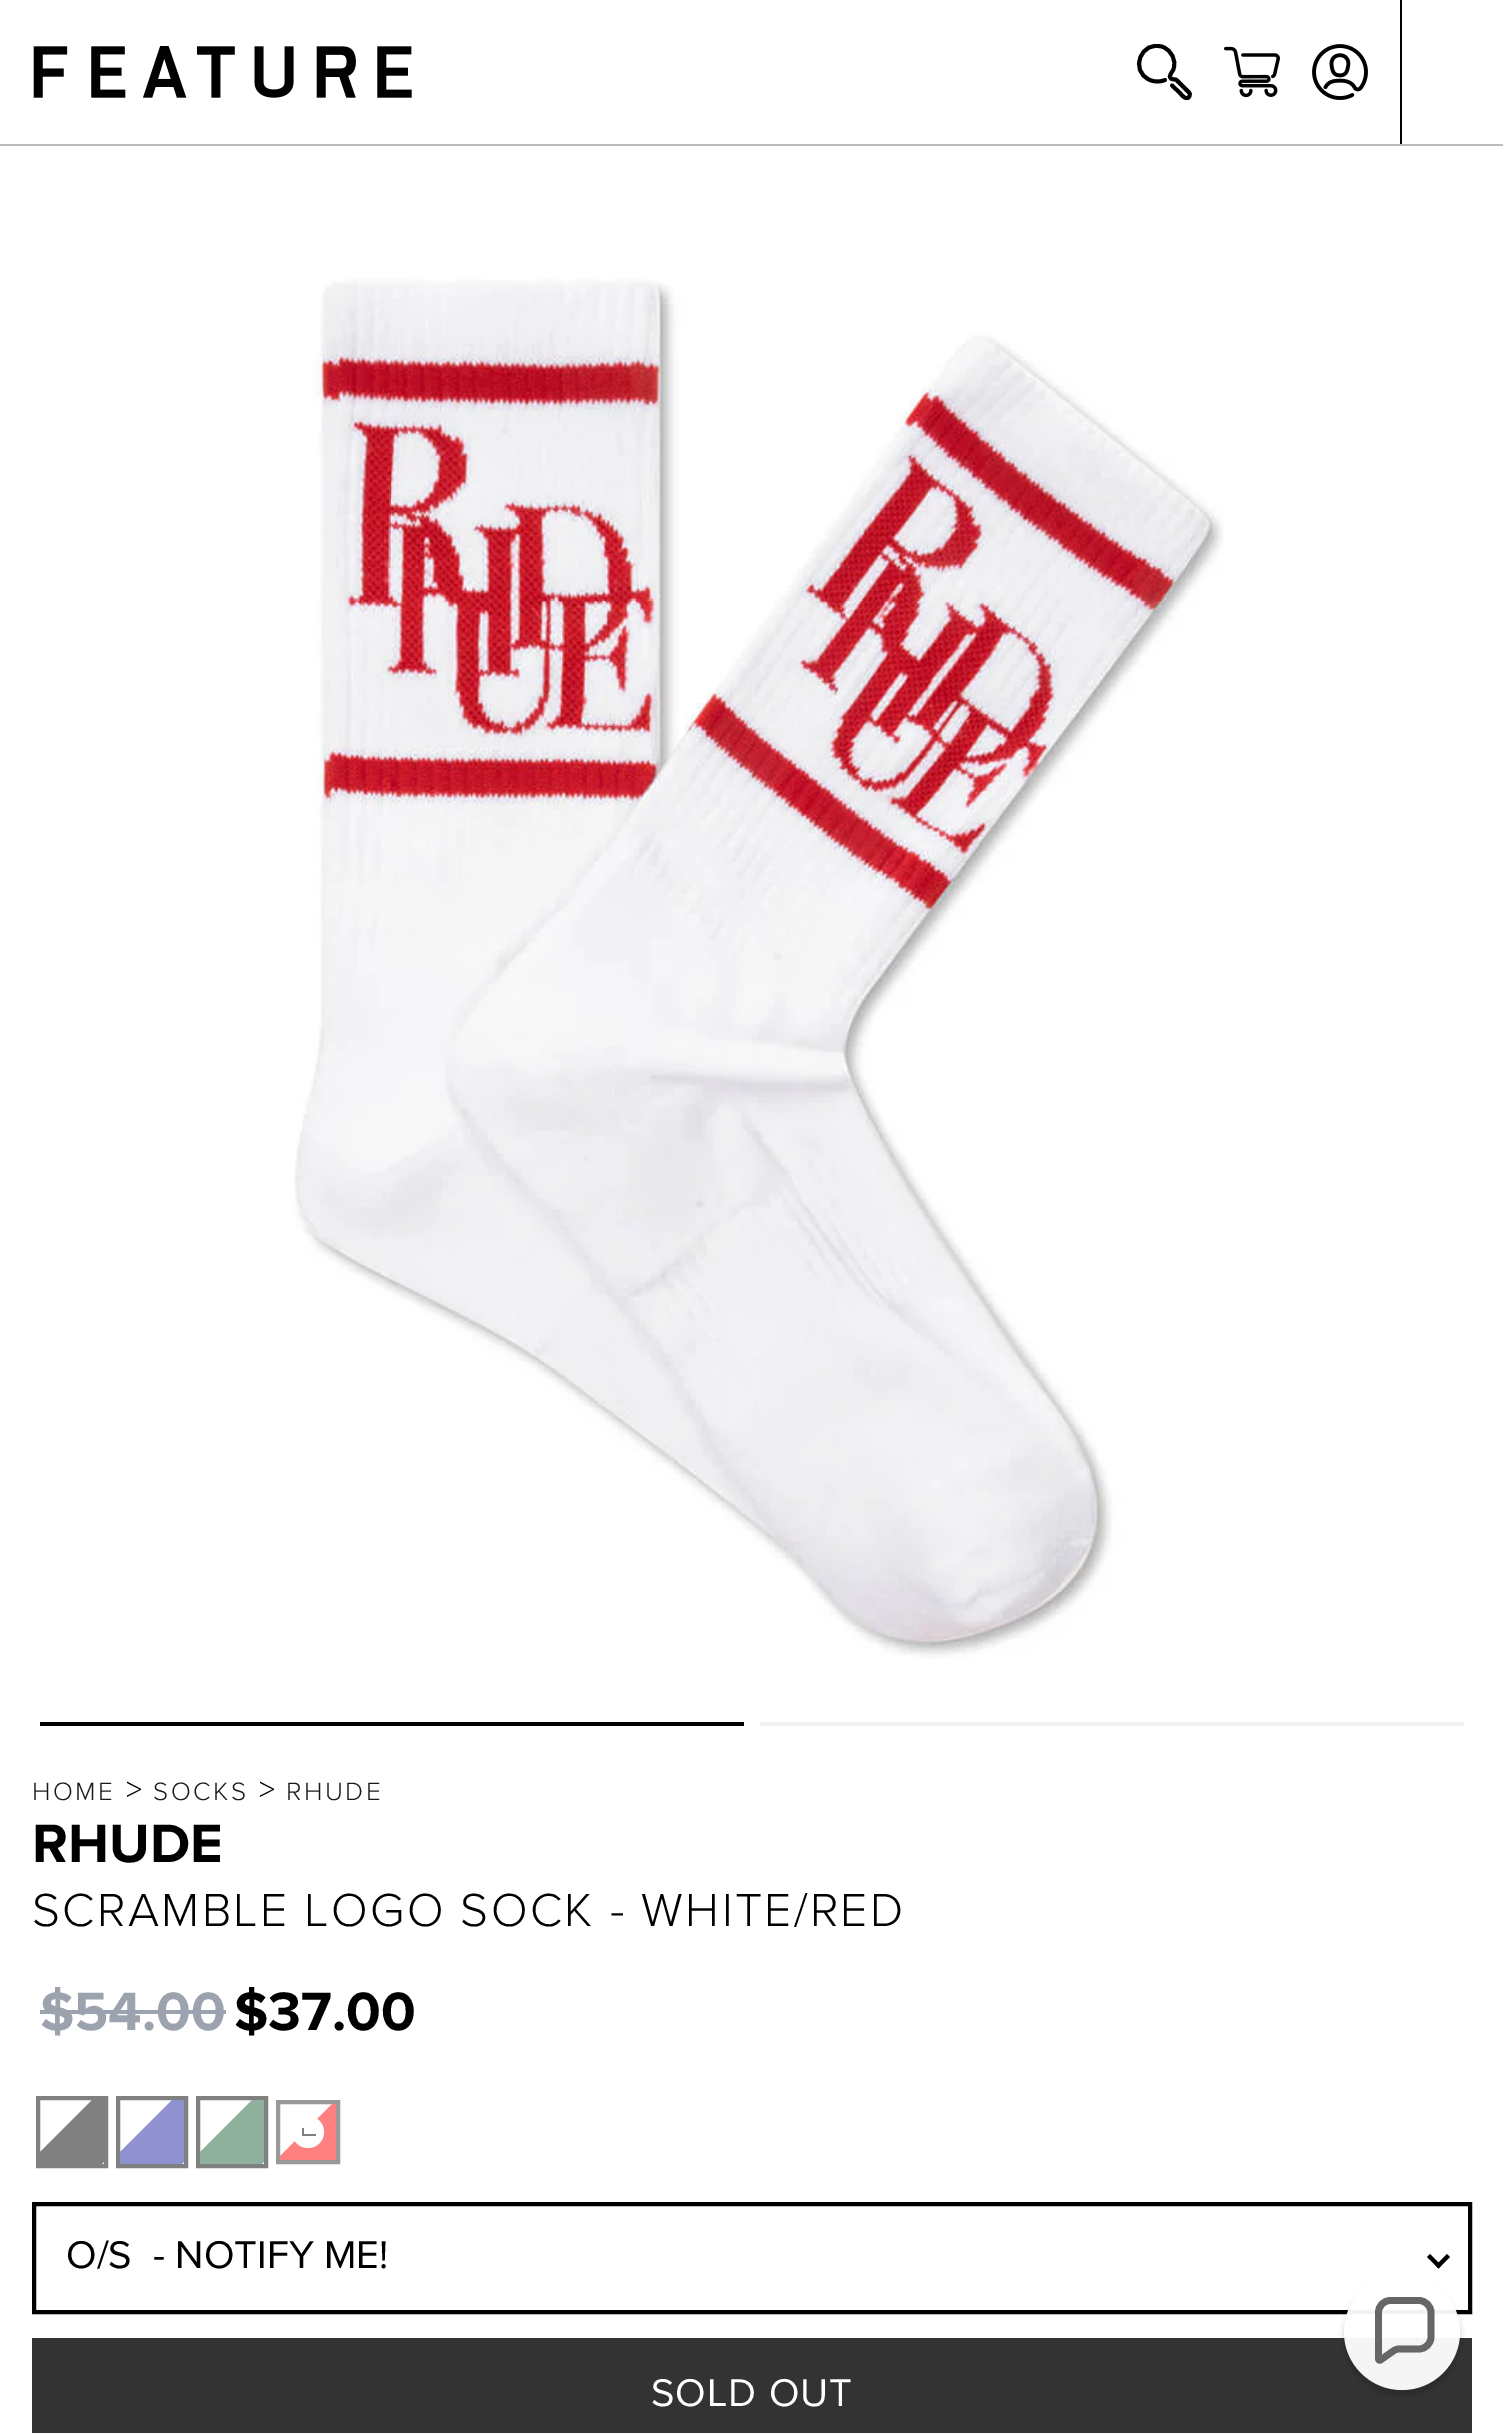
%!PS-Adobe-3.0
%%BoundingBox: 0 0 1503 2433
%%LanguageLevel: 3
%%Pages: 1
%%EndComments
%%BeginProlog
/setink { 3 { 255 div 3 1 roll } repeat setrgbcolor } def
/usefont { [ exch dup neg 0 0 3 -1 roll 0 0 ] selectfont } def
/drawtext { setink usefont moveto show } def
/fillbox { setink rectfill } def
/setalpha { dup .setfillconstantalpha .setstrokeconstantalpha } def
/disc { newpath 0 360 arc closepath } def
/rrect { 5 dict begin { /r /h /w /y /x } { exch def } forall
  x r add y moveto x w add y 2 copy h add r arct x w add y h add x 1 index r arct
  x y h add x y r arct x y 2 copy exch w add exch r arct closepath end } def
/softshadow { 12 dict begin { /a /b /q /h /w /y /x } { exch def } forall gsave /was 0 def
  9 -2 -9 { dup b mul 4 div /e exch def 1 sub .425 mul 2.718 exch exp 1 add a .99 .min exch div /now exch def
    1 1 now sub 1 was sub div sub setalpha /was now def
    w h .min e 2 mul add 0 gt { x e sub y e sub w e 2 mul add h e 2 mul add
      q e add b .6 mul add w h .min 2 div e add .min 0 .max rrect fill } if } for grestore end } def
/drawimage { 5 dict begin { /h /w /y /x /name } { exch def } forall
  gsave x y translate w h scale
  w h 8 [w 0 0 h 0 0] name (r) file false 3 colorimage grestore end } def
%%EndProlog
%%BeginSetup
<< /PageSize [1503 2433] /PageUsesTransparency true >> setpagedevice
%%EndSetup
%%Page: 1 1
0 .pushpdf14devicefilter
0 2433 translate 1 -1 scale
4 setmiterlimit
0 0 1503 2433 255 255 255 fillbox
0 144 1503 2 188 188 188 fillbox
(assets/img1.rgb) 33 46 379 52 drawimage
gsave
1136 44 56 56 rectclip
0 0 0 setink
3.9 setlinewidth
1 setlinecap
1165 80 moveto 1160 82 1154.5 82 1150 80 curveto 1128.5 71 1141.5 39 1163 47 curveto 1171.5 50.5 1176.5 60 1173.5 69 curveto 1173 71 1169.5 74.5 1170 77 curveto 1171 80.5 1174.5 78.5 1176.5 80 curveto 1189 92.5 lineto 1190 93.5 1190 94.5 1189.5 96 curveto 1187 101.5 1181.5 95 1180 93 curveto 1172 85.5 lineto stroke
grestore
(assets/img2.rgb) 1224 46 56 52 drawimage
(assets/img3.rgb) 1312 44 56 56 drawimage
1400 0 2 144 0 0 0 fillbox
(assets/img4.rgb) 294 279 930 1380 drawimage
40 1722 704 4 0 0 0 fillbox
760 1722 704 4 242 242 242 fillbox
/ProximaNova-Light 26 usefont
26 26 26 setink
32 1800 moveto 2.5 0 (HOME) ashow
/ProximaNova-Light 32 usefont
0 0 0 setink
126 1800 moveto 2 0 (>) ashow
/ProximaNova-Light 26 usefont
26 26 26 setink
153 1800 moveto 2.5 0 (SOCKS) ashow
/ProximaNova-Light 32 usefont
0 0 0 setink
259 1800 moveto 2 0 (>) ashow
/ProximaNova-Light 26 usefont
26 26 26 setink
286 1800 moveto 2.5 0 (RHUDE) ashow
(RHUDE) 32 1862 /ProximaNova-Bold 56 0 0 0 drawtext
/ProximaNova-Light 48 usefont
32 1926 moveto 2.4 0 (SCRAMBLE LOGO SOCK - WHITE/RED) ashow
($54.00) 40 2030 /ProximaNova-Bold 56 156 163 175 drawtext
40 2010 186 4 156 163 175 fillbox
($37.00) 234 2030 /ProximaNova-Bold 56 0 0 0 drawtext
128 128 128 setink
4 setlinewidth
38 2098 68 68 rectstroke
gsave
40 2100 64 64 rectclip
103 2089 moveto 140 2126 lineto 66 2200 lineto 29 2163 lineto closepath fill
grestore
118 2098 68 68 rectstroke
gsave
120 2100 64 64 rectclip
144 145 207 setink
183 2089 moveto 220 2126 lineto 146 2200 lineto 109 2163 lineto closepath fill
grestore
198 2098 68 68 rectstroke
gsave
200 2100 64 64 rectclip
142 176 157 setink
263 2089 moveto 300 2126 lineto 226 2200 lineto 189 2163 lineto closepath fill
grestore
153 153 153 setink
278 2102 60 60 rectstroke
gsave
280 2104 56 56 rectclip
255 128 128 setink
343 2093 moveto 380 2130 lineto 306 2204 lineto 269 2167 lineto closepath fill
grestore
255 255 255 setink
308 2132 16 disc fill
302 2134 14 2 128 128 128 fillbox
302 2128 2 8 128 128 128 fillbox
0 0 0 setink
34 2204 1436 108 rectstroke
(O/S) 66 2268 /ProximaNova-Regular 40 0 0 0 drawtext
(- NOTIFY ME!) 153 2268 /ProximaNova-Regular 40 0 0 0 drawtext
1447 2254 moveto 1450 2257 lineto 1438.5 2268.5 lineto 1435.5 2265.5 lineto closepath fill
1430 2254 moveto 1441.5 2265.5 lineto 1438.5 2268.5 lineto 1427 2257 lineto closepath fill
32 2338 1440 95 51 51 51 fillbox
255 255 255 setink
651 2406 moveto 1 0 (SOLD OUT) ashow
gsave
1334 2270 moveto 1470 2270 lineto 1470 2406 lineto 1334 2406 lineto closepath 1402 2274 moveto 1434 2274 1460 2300 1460 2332 curveto 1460 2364 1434 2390 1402 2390 curveto 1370 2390 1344 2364 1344 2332 curveto 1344 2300 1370 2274 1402 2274 curveto closepath eoclip newpath
0 0 0 setink
1344 2280 116 116 58 3 0.19 softshadow
grestore
0.95 setalpha
1402 2332 58 disc fill
94 94 94 setink
6.8 setlinewidth
1419 2300.5 moveto 1390.5 2300.5 lineto 1383.5 2300.5 1378.5 2306 1378.5 2312.5 curveto 1378.5 2358.5 lineto 1378.5 2360 1379.5 2360.5 1380.5 2360 curveto 1394 2350.5 lineto 1395.5 2349.5 1397.5 2349 1399 2349 curveto 1419 2349 lineto 1425.5 2349 1431 2343.5 1431 2337 curveto 1431 2312.5 lineto 1431 2306 1425.5 2300.5 1419 2300.5 curveto closepath stroke
.poppdf14devicefilter showpage
%%EOF
